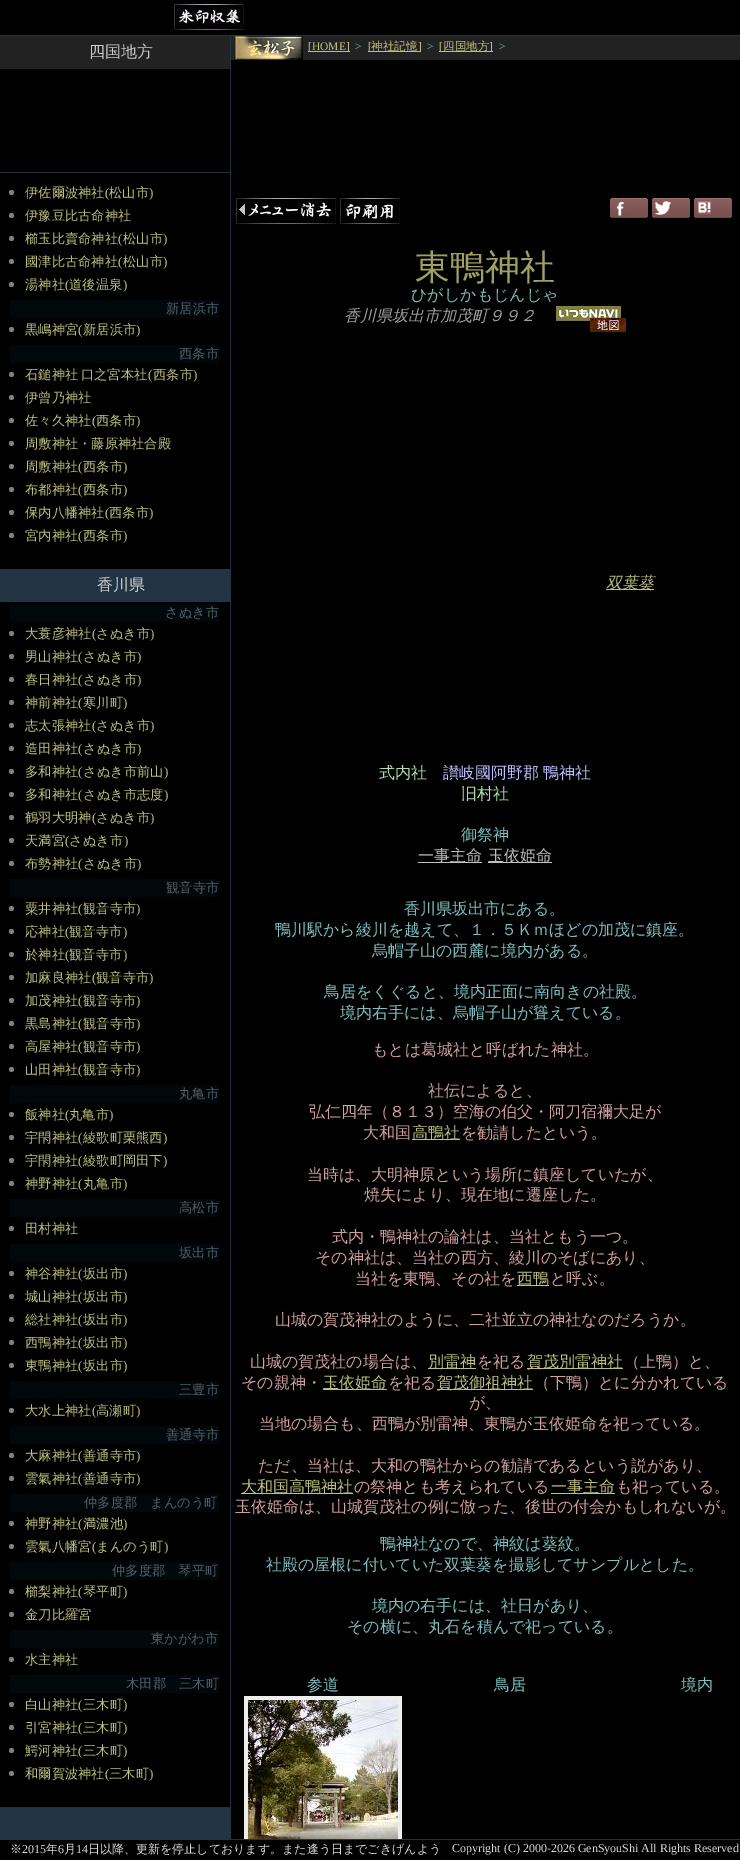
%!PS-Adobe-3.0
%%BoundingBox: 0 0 740 1860
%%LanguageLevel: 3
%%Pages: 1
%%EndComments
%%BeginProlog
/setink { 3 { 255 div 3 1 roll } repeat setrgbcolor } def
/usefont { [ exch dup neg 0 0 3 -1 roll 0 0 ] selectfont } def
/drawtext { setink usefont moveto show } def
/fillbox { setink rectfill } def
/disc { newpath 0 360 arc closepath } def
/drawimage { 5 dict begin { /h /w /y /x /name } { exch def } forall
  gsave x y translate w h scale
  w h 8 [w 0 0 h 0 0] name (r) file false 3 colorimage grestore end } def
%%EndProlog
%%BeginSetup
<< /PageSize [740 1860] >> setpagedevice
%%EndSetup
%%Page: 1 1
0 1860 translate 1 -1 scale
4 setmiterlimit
0 0 740 1860 0 0 0 fillbox
(assets/img1.rgb) 174 4 70 26 drawimage
0 35 740 1 34 51 68 fillbox
230 35 1 1806 34 51 68 fillbox
0 36 230 33 34 34 34 fillbox
(四国地方) 89 57 /WenQuanYiZenHei-Medium 16 204 204 204 drawtext
0 172 230 1 34 51 68 fillbox
128 128 128 setink
11.5 192.5 2.5 disc fill
(伊佐爾波神社) 25 197 /WenQuanYiZenHei-Medium 13.25 191 191 127 drawtext
(\() 105 197 /LiberationSerif-Regular 13.25 191 191 127 drawtext
(松山市) 109 197 /WenQuanYiZenHei-Medium 13.25 191 191 127 drawtext
(\)) 149 197 /LiberationSerif-Regular 13.25 191 191 127 drawtext
128 128 128 setink
11.5 215.5 2.5 disc fill
(伊豫豆比古命神社) 25 220 /WenQuanYiZenHei-Medium 13.25 191 191 127 drawtext
128 128 128 setink
11.5 238.5 2.5 disc fill
(櫛玉比賣命神社) 25 243 /WenQuanYiZenHei-Medium 13.25 191 191 127 drawtext
(\() 118 243 /LiberationSerif-Regular 13.25 191 191 127 drawtext
(松山市) 123 243 /WenQuanYiZenHei-Medium 13.25 191 191 127 drawtext
(\)) 163 243 /LiberationSerif-Regular 13.25 191 191 127 drawtext
128 128 128 setink
11.5 261.5 2.5 disc fill
(國津比古命神社) 25 266 /WenQuanYiZenHei-Medium 13.25 191 191 127 drawtext
(\() 118 266 /LiberationSerif-Regular 13.25 191 191 127 drawtext
(松山市) 123 266 /WenQuanYiZenHei-Medium 13.25 191 191 127 drawtext
(\)) 163 266 /LiberationSerif-Regular 13.25 191 191 127 drawtext
128 128 128 setink
11.5 284.5 2.5 disc fill
(湯神社) 25 289 /WenQuanYiZenHei-Medium 13.25 191 191 127 drawtext
(\() 65 289 /LiberationSerif-Regular 13.25 191 191 127 drawtext
(道後温泉) 69 289 /WenQuanYiZenHei-Medium 13.25 191 191 127 drawtext
(\)) 123 289 /LiberationSerif-Regular 13.25 191 191 127 drawtext
10 300 209 18 1 8 12 fillbox
(新居浜市) 166 313 /WenQuanYiZenHei-Medium 13.25 85 94 102 drawtext
128 128 128 setink
11.5 329.5 2.5 disc fill
(黒嶋神宮) 25 334 /WenQuanYiZenHei-Medium 13.25 191 191 127 drawtext
(\() 78 334 /LiberationSerif-Regular 13.25 191 191 127 drawtext
(新居浜市) 83 334 /WenQuanYiZenHei-Medium 13.25 191 191 127 drawtext
(\)) 136 334 /LiberationSerif-Regular 13.25 191 191 127 drawtext
10 345 209 18 1 8 12 fillbox
(西条市) 179 358 /WenQuanYiZenHei-Medium 13.25 85 94 102 drawtext
128 128 128 setink
11.5 374.5 2.5 disc fill
191 191 127 setink
25 379 moveto -1 0 32 (石鎚神社 口之宮本社) widthshow
(\() 148 379 /LiberationSerif-Regular 13.25 191 191 127 drawtext
(西条市) 153 379 /WenQuanYiZenHei-Medium 13.25 191 191 127 drawtext
(\)) 193 379 /LiberationSerif-Regular 13.25 191 191 127 drawtext
128 128 128 setink
11.5 397.5 2.5 disc fill
(伊曾乃神社) 25 402 /WenQuanYiZenHei-Medium 13.25 191 191 127 drawtext
128 128 128 setink
11.5 420.5 2.5 disc fill
(佐々久神社) 25 425 /WenQuanYiZenHei-Medium 13.25 191 191 127 drawtext
(\() 92 425 /LiberationSerif-Regular 13.25 191 191 127 drawtext
(西条市) 96 425 /WenQuanYiZenHei-Medium 13.25 191 191 127 drawtext
(\)) 136 425 /LiberationSerif-Regular 13.25 191 191 127 drawtext
128 128 128 setink
11.5 443.5 2.5 disc fill
(周敷神社・藤原神社合殿) 25 448 /WenQuanYiZenHei-Medium 13.25 191 191 127 drawtext
128 128 128 setink
11.5 466.5 2.5 disc fill
(周敷神社) 25 471 /WenQuanYiZenHei-Medium 13.25 191 191 127 drawtext
(\() 78 471 /LiberationSerif-Regular 13.25 191 191 127 drawtext
(西条市) 83 471 /WenQuanYiZenHei-Medium 13.25 191 191 127 drawtext
(\)) 123 471 /LiberationSerif-Regular 13.25 191 191 127 drawtext
128 128 128 setink
11.5 489.5 2.5 disc fill
(布都神社) 25 494 /WenQuanYiZenHei-Medium 13.25 191 191 127 drawtext
(\() 78 494 /LiberationSerif-Regular 13.25 191 191 127 drawtext
(西条市) 83 494 /WenQuanYiZenHei-Medium 13.25 191 191 127 drawtext
(\)) 123 494 /LiberationSerif-Regular 13.25 191 191 127 drawtext
128 128 128 setink
11.5 512.5 2.5 disc fill
(保内八幡神社) 25 517 /WenQuanYiZenHei-Medium 13.25 191 191 127 drawtext
(\() 105 517 /LiberationSerif-Regular 13.25 191 191 127 drawtext
(西条市) 109 517 /WenQuanYiZenHei-Medium 13.25 191 191 127 drawtext
(\)) 149 517 /LiberationSerif-Regular 13.25 191 191 127 drawtext
128 128 128 setink
11.5 535.5 2.5 disc fill
(宮内神社) 25 540 /WenQuanYiZenHei-Medium 13.25 191 191 127 drawtext
(\() 78 540 /LiberationSerif-Regular 13.25 191 191 127 drawtext
(西条市) 83 540 /WenQuanYiZenHei-Medium 13.25 191 191 127 drawtext
(\)) 123 540 /LiberationSerif-Regular 13.25 191 191 127 drawtext
0 569 230 33 34 51 68 fillbox
(香川県) 97 590 /WenQuanYiZenHei-Medium 16 204 204 204 drawtext
10 604 209 18 1 8 12 fillbox
(さぬき市) 165 617 /WenQuanYiZenHei-Medium 13.25 85 94 102 drawtext
128 128 128 setink
11.5 633.5 2.5 disc fill
(大蓑彦神社) 25 638 /WenQuanYiZenHei-Medium 13.25 191 191 127 drawtext
(\() 92 638 /LiberationSerif-Regular 13.25 191 191 127 drawtext
(さぬき市) 96 638 /WenQuanYiZenHei-Medium 13.25 191 191 127 drawtext
(\)) 150 638 /LiberationSerif-Regular 13.25 191 191 127 drawtext
128 128 128 setink
11.5 656.5 2.5 disc fill
(男山神社) 25 661 /WenQuanYiZenHei-Medium 13.25 191 191 127 drawtext
(\() 78 661 /LiberationSerif-Regular 13.25 191 191 127 drawtext
(さぬき市) 83 661 /WenQuanYiZenHei-Medium 13.25 191 191 127 drawtext
(\)) 137 661 /LiberationSerif-Regular 13.25 191 191 127 drawtext
128 128 128 setink
11.5 679.5 2.5 disc fill
(春日神社) 25 684 /WenQuanYiZenHei-Medium 13.25 191 191 127 drawtext
(\() 78 684 /LiberationSerif-Regular 13.25 191 191 127 drawtext
(さぬき市) 83 684 /WenQuanYiZenHei-Medium 13.25 191 191 127 drawtext
(\)) 137 684 /LiberationSerif-Regular 13.25 191 191 127 drawtext
128 128 128 setink
11.5 702.5 2.5 disc fill
(神前神社) 25 707 /WenQuanYiZenHei-Medium 13.25 191 191 127 drawtext
(\() 78 707 /LiberationSerif-Regular 13.25 191 191 127 drawtext
(寒川町) 83 707 /WenQuanYiZenHei-Medium 13.25 191 191 127 drawtext
(\)) 123 707 /LiberationSerif-Regular 13.25 191 191 127 drawtext
128 128 128 setink
11.5 725.5 2.5 disc fill
(志太張神社) 25 730 /WenQuanYiZenHei-Medium 13.25 191 191 127 drawtext
(\() 92 730 /LiberationSerif-Regular 13.25 191 191 127 drawtext
(さぬき市) 96 730 /WenQuanYiZenHei-Medium 13.25 191 191 127 drawtext
(\)) 150 730 /LiberationSerif-Regular 13.25 191 191 127 drawtext
128 128 128 setink
11.5 748.5 2.5 disc fill
(造田神社) 25 753 /WenQuanYiZenHei-Medium 13.25 191 191 127 drawtext
(\() 78 753 /LiberationSerif-Regular 13.25 191 191 127 drawtext
(さぬき市) 83 753 /WenQuanYiZenHei-Medium 13.25 191 191 127 drawtext
(\)) 137 753 /LiberationSerif-Regular 13.25 191 191 127 drawtext
128 128 128 setink
11.5 771.5 2.5 disc fill
(多和神社) 25 776 /WenQuanYiZenHei-Medium 13.25 191 191 127 drawtext
(\() 78 776 /LiberationSerif-Regular 13.25 191 191 127 drawtext
(さぬき市前山) 83 776 /WenQuanYiZenHei-Medium 13.25 191 191 127 drawtext
(\)) 164 776 /LiberationSerif-Regular 13.25 191 191 127 drawtext
128 128 128 setink
11.5 794.5 2.5 disc fill
(多和神社) 25 799 /WenQuanYiZenHei-Medium 13.25 191 191 127 drawtext
(\() 78 799 /LiberationSerif-Regular 13.25 191 191 127 drawtext
(さぬき市志度) 83 799 /WenQuanYiZenHei-Medium 13.25 191 191 127 drawtext
(\)) 164 799 /LiberationSerif-Regular 13.25 191 191 127 drawtext
128 128 128 setink
11.5 817.5 2.5 disc fill
(鶴羽大明神) 25 822 /WenQuanYiZenHei-Medium 13.25 191 191 127 drawtext
(\() 92 822 /LiberationSerif-Regular 13.25 191 191 127 drawtext
(さぬき市) 96 822 /WenQuanYiZenHei-Medium 13.25 191 191 127 drawtext
(\)) 150 822 /LiberationSerif-Regular 13.25 191 191 127 drawtext
128 128 128 setink
11.5 840.5 2.5 disc fill
(天満宮) 25 845 /WenQuanYiZenHei-Medium 13.25 191 191 127 drawtext
(\() 65 845 /LiberationSerif-Regular 13.25 191 191 127 drawtext
(さぬき市) 69 845 /WenQuanYiZenHei-Medium 13.25 191 191 127 drawtext
(\)) 124 845 /LiberationSerif-Regular 13.25 191 191 127 drawtext
128 128 128 setink
11.5 863.5 2.5 disc fill
(布勢神社) 25 868 /WenQuanYiZenHei-Medium 13.25 191 191 127 drawtext
(\() 78 868 /LiberationSerif-Regular 13.25 191 191 127 drawtext
(さぬき市) 83 868 /WenQuanYiZenHei-Medium 13.25 191 191 127 drawtext
(\)) 137 868 /LiberationSerif-Regular 13.25 191 191 127 drawtext
10 879 209 18 1 8 12 fillbox
(観音寺市) 166 892 /WenQuanYiZenHei-Medium 13.25 85 94 102 drawtext
128 128 128 setink
11.5 908.5 2.5 disc fill
(粟井神社) 25 913 /WenQuanYiZenHei-Medium 13.25 191 191 127 drawtext
(\() 78 913 /LiberationSerif-Regular 13.25 191 191 127 drawtext
(観音寺市) 83 913 /WenQuanYiZenHei-Medium 13.25 191 191 127 drawtext
(\)) 136 913 /LiberationSerif-Regular 13.25 191 191 127 drawtext
128 128 128 setink
11.5 931.5 2.5 disc fill
(応神社) 25 936 /WenQuanYiZenHei-Medium 13.25 191 191 127 drawtext
(\() 65 936 /LiberationSerif-Regular 13.25 191 191 127 drawtext
(観音寺市) 69 936 /WenQuanYiZenHei-Medium 13.25 191 191 127 drawtext
(\)) 123 936 /LiberationSerif-Regular 13.25 191 191 127 drawtext
128 128 128 setink
11.5 954.5 2.5 disc fill
(於神社) 25 959 /WenQuanYiZenHei-Medium 13.25 191 191 127 drawtext
(\() 65 959 /LiberationSerif-Regular 13.25 191 191 127 drawtext
(観音寺市) 69 959 /WenQuanYiZenHei-Medium 13.25 191 191 127 drawtext
(\)) 123 959 /LiberationSerif-Regular 13.25 191 191 127 drawtext
128 128 128 setink
11.5 977.5 2.5 disc fill
(加麻良神社) 25 982 /WenQuanYiZenHei-Medium 13.25 191 191 127 drawtext
(\() 92 982 /LiberationSerif-Regular 13.25 191 191 127 drawtext
(観音寺市) 96 982 /WenQuanYiZenHei-Medium 13.25 191 191 127 drawtext
(\)) 149 982 /LiberationSerif-Regular 13.25 191 191 127 drawtext
128 128 128 setink
11.5 1000.5 2.5 disc fill
(加茂神社) 25 1005 /WenQuanYiZenHei-Medium 13.25 191 191 127 drawtext
(\() 78 1005 /LiberationSerif-Regular 13.25 191 191 127 drawtext
(観音寺市) 83 1005 /WenQuanYiZenHei-Medium 13.25 191 191 127 drawtext
(\)) 136 1005 /LiberationSerif-Regular 13.25 191 191 127 drawtext
128 128 128 setink
11.5 1023.5 2.5 disc fill
(黒島神社) 25 1028 /WenQuanYiZenHei-Medium 13.25 191 191 127 drawtext
(\() 78 1028 /LiberationSerif-Regular 13.25 191 191 127 drawtext
(観音寺市) 83 1028 /WenQuanYiZenHei-Medium 13.25 191 191 127 drawtext
(\)) 136 1028 /LiberationSerif-Regular 13.25 191 191 127 drawtext
128 128 128 setink
11.5 1046.5 2.5 disc fill
(高屋神社) 25 1051 /WenQuanYiZenHei-Medium 13.25 191 191 127 drawtext
(\() 78 1051 /LiberationSerif-Regular 13.25 191 191 127 drawtext
(観音寺市) 83 1051 /WenQuanYiZenHei-Medium 13.25 191 191 127 drawtext
(\)) 136 1051 /LiberationSerif-Regular 13.25 191 191 127 drawtext
128 128 128 setink
11.5 1069.5 2.5 disc fill
(山田神社) 25 1074 /WenQuanYiZenHei-Medium 13.25 191 191 127 drawtext
(\() 78 1074 /LiberationSerif-Regular 13.25 191 191 127 drawtext
(観音寺市) 83 1074 /WenQuanYiZenHei-Medium 13.25 191 191 127 drawtext
(\)) 136 1074 /LiberationSerif-Regular 13.25 191 191 127 drawtext
10 1085 209 18 1 8 12 fillbox
(丸亀市) 179 1098 /WenQuanYiZenHei-Medium 13.25 85 94 102 drawtext
128 128 128 setink
11.5 1114.5 2.5 disc fill
(飯神社) 25 1119 /WenQuanYiZenHei-Medium 13.25 191 191 127 drawtext
(\() 65 1119 /LiberationSerif-Regular 13.25 191 191 127 drawtext
(丸亀市) 69 1119 /WenQuanYiZenHei-Medium 13.25 191 191 127 drawtext
(\)) 109 1119 /LiberationSerif-Regular 13.25 191 191 127 drawtext
128 128 128 setink
11.5 1137.5 2.5 disc fill
(宇閇神社) 25 1142 /WenQuanYiZenHei-Medium 13.25 191 191 127 drawtext
(\() 78 1142 /LiberationSerif-Regular 13.25 191 191 127 drawtext
(綾歌町栗熊西) 83 1142 /WenQuanYiZenHei-Medium 13.25 191 191 127 drawtext
(\)) 163 1142 /LiberationSerif-Regular 13.25 191 191 127 drawtext
128 128 128 setink
11.5 1160.5 2.5 disc fill
(宇閇神社) 25 1165 /WenQuanYiZenHei-Medium 13.25 191 191 127 drawtext
(\() 78 1165 /LiberationSerif-Regular 13.25 191 191 127 drawtext
(綾歌町岡田下) 83 1165 /WenQuanYiZenHei-Medium 13.25 191 191 127 drawtext
(\)) 163 1165 /LiberationSerif-Regular 13.25 191 191 127 drawtext
128 128 128 setink
11.5 1183.5 2.5 disc fill
(神野神社) 25 1188 /WenQuanYiZenHei-Medium 13.25 191 191 127 drawtext
(\() 78 1188 /LiberationSerif-Regular 13.25 191 191 127 drawtext
(丸亀市) 83 1188 /WenQuanYiZenHei-Medium 13.25 191 191 127 drawtext
(\)) 123 1188 /LiberationSerif-Regular 13.25 191 191 127 drawtext
10 1199 209 18 1 8 12 fillbox
(高松市) 179 1212 /WenQuanYiZenHei-Medium 13.25 85 94 102 drawtext
128 128 128 setink
11.5 1228.5 2.5 disc fill
(田村神社) 25 1233 /WenQuanYiZenHei-Medium 13.25 191 191 127 drawtext
10 1244 209 18 1 8 12 fillbox
(坂出市) 179 1257 /WenQuanYiZenHei-Medium 13.25 85 94 102 drawtext
128 128 128 setink
11.5 1273.5 2.5 disc fill
(神谷神社) 25 1278 /WenQuanYiZenHei-Medium 13.25 191 191 127 drawtext
(\() 78 1278 /LiberationSerif-Regular 13.25 191 191 127 drawtext
(坂出市) 83 1278 /WenQuanYiZenHei-Medium 13.25 191 191 127 drawtext
(\)) 123 1278 /LiberationSerif-Regular 13.25 191 191 127 drawtext
128 128 128 setink
11.5 1296.5 2.5 disc fill
(城山神社) 25 1301 /WenQuanYiZenHei-Medium 13.25 191 191 127 drawtext
(\() 78 1301 /LiberationSerif-Regular 13.25 191 191 127 drawtext
(坂出市) 83 1301 /WenQuanYiZenHei-Medium 13.25 191 191 127 drawtext
(\)) 123 1301 /LiberationSerif-Regular 13.25 191 191 127 drawtext
128 128 128 setink
11.5 1319.5 2.5 disc fill
(総社神社) 25 1324 /WenQuanYiZenHei-Medium 13.25 191 191 127 drawtext
(\() 78 1324 /LiberationSerif-Regular 13.25 191 191 127 drawtext
(坂出市) 83 1324 /WenQuanYiZenHei-Medium 13.25 191 191 127 drawtext
(\)) 123 1324 /LiberationSerif-Regular 13.25 191 191 127 drawtext
128 128 128 setink
11.5 1342.5 2.5 disc fill
(西鴨神社) 25 1347 /WenQuanYiZenHei-Medium 13.25 191 191 127 drawtext
(\() 78 1347 /LiberationSerif-Regular 13.25 191 191 127 drawtext
(坂出市) 83 1347 /WenQuanYiZenHei-Medium 13.25 191 191 127 drawtext
(\)) 123 1347 /LiberationSerif-Regular 13.25 191 191 127 drawtext
128 128 128 setink
11.5 1365.5 2.5 disc fill
(東鴨神社) 25 1370 /WenQuanYiZenHei-Medium 13.25 191 191 127 drawtext
(\() 78 1370 /LiberationSerif-Regular 13.25 191 191 127 drawtext
(坂出市) 83 1370 /WenQuanYiZenHei-Medium 13.25 191 191 127 drawtext
(\)) 123 1370 /LiberationSerif-Regular 13.25 191 191 127 drawtext
10 1381 209 18 1 8 12 fillbox
(三豊市) 179 1394 /WenQuanYiZenHei-Medium 13.25 85 94 102 drawtext
128 128 128 setink
11.5 1410.5 2.5 disc fill
(大水上神社) 25 1415 /WenQuanYiZenHei-Medium 13.25 191 191 127 drawtext
(\() 92 1415 /LiberationSerif-Regular 13.25 191 191 127 drawtext
(高瀬町) 96 1415 /WenQuanYiZenHei-Medium 13.25 191 191 127 drawtext
(\)) 136 1415 /LiberationSerif-Regular 13.25 191 191 127 drawtext
10 1426 209 18 1 8 12 fillbox
(善通寺市) 166 1439 /WenQuanYiZenHei-Medium 13.25 85 94 102 drawtext
128 128 128 setink
11.5 1455.5 2.5 disc fill
(大麻神社) 25 1460 /WenQuanYiZenHei-Medium 13.25 191 191 127 drawtext
(\() 78 1460 /LiberationSerif-Regular 13.25 191 191 127 drawtext
(善通寺市) 83 1460 /WenQuanYiZenHei-Medium 13.25 191 191 127 drawtext
(\)) 136 1460 /LiberationSerif-Regular 13.25 191 191 127 drawtext
128 128 128 setink
11.5 1478.5 2.5 disc fill
(雲氣神社) 25 1483 /WenQuanYiZenHei-Medium 13.25 191 191 127 drawtext
(\() 78 1483 /LiberationSerif-Regular 13.25 191 191 127 drawtext
(善通寺市) 83 1483 /WenQuanYiZenHei-Medium 13.25 191 191 127 drawtext
(\)) 136 1483 /LiberationSerif-Regular 13.25 191 191 127 drawtext
10 1494 209 18 1 8 12 fillbox
(仲多度郡　まんのう町) 84 1507 /WenQuanYiZenHei-Medium 13.25 85 94 102 drawtext
128 128 128 setink
11.5 1523.5 2.5 disc fill
(神野神社) 25 1528 /WenQuanYiZenHei-Medium 13.25 191 191 127 drawtext
(\() 78 1528 /LiberationSerif-Regular 13.25 191 191 127 drawtext
(満濃池) 83 1528 /WenQuanYiZenHei-Medium 13.25 191 191 127 drawtext
(\)) 123 1528 /LiberationSerif-Regular 13.25 191 191 127 drawtext
128 128 128 setink
11.5 1546.5 2.5 disc fill
(雲氣八幡宮) 25 1551 /WenQuanYiZenHei-Medium 13.25 191 191 127 drawtext
(\() 92 1551 /LiberationSerif-Regular 13.25 191 191 127 drawtext
(まんのう町) 96 1551 /WenQuanYiZenHei-Medium 13.25 191 191 127 drawtext
(\)) 164 1551 /LiberationSerif-Regular 13.25 191 191 127 drawtext
10 1562 209 18 1 8 12 fillbox
(仲多度郡　琴平町) 112 1575 /WenQuanYiZenHei-Medium 13.25 85 94 102 drawtext
128 128 128 setink
11.5 1591.5 2.5 disc fill
(櫛梨神社) 25 1596 /WenQuanYiZenHei-Medium 13.25 191 191 127 drawtext
(\() 78 1596 /LiberationSerif-Regular 13.25 191 191 127 drawtext
(琴平町) 83 1596 /WenQuanYiZenHei-Medium 13.25 191 191 127 drawtext
(\)) 123 1596 /LiberationSerif-Regular 13.25 191 191 127 drawtext
128 128 128 setink
11.5 1614.5 2.5 disc fill
(金刀比羅宮) 25 1619 /WenQuanYiZenHei-Medium 13.25 191 191 127 drawtext
10 1630 209 18 1 8 12 fillbox
(東かがわ市) 151 1643 /WenQuanYiZenHei-Medium 13.25 85 94 102 drawtext
128 128 128 setink
11.5 1659.5 2.5 disc fill
(水主神社) 25 1664 /WenQuanYiZenHei-Medium 13.25 191 191 127 drawtext
10 1675 209 18 1 8 12 fillbox
(木田郡　三木町) 126 1688 /WenQuanYiZenHei-Medium 13.25 85 94 102 drawtext
128 128 128 setink
11.5 1704.5 2.5 disc fill
(白山神社) 25 1709 /WenQuanYiZenHei-Medium 13.25 191 191 127 drawtext
(\() 78 1709 /LiberationSerif-Regular 13.25 191 191 127 drawtext
(三木町) 83 1709 /WenQuanYiZenHei-Medium 13.25 191 191 127 drawtext
(\)) 123 1709 /LiberationSerif-Regular 13.25 191 191 127 drawtext
128 128 128 setink
11.5 1727.5 2.5 disc fill
(引宮神社) 25 1732 /WenQuanYiZenHei-Medium 13.25 191 191 127 drawtext
(\() 78 1732 /LiberationSerif-Regular 13.25 191 191 127 drawtext
(三木町) 83 1732 /WenQuanYiZenHei-Medium 13.25 191 191 127 drawtext
(\)) 123 1732 /LiberationSerif-Regular 13.25 191 191 127 drawtext
128 128 128 setink
11.5 1750.5 2.5 disc fill
(鰐河神社) 25 1755 /WenQuanYiZenHei-Medium 13.25 191 191 127 drawtext
(\() 78 1755 /LiberationSerif-Regular 13.25 191 191 127 drawtext
(三木町) 83 1755 /WenQuanYiZenHei-Medium 13.25 191 191 127 drawtext
(\)) 123 1755 /LiberationSerif-Regular 13.25 191 191 127 drawtext
128 128 128 setink
11.5 1773.5 2.5 disc fill
(和爾賀波神社) 25 1778 /WenQuanYiZenHei-Medium 13.25 191 191 127 drawtext
(\() 105 1778 /LiberationSerif-Regular 13.25 191 191 127 drawtext
(三木町) 109 1778 /WenQuanYiZenHei-Medium 13.25 191 191 127 drawtext
(\)) 149 1778 /LiberationSerif-Regular 13.25 191 191 127 drawtext
0 1807 230 32 34 51 68 fillbox
231 36 509 24 34 34 34 fillbox
(assets/img2.rgb) 235 36 68 24 drawimage
308 51 42 1 191 191 127 fillbox
([HOME]) 308 50 /LiberationSerif-Regular 11.5 191 191 127 drawtext
(>) 355 50 /LiberationSerif-Regular 11.5 127 191 191 drawtext
368 51 53 1 191 191 127 fillbox
([) 368 50 /LiberationSerif-Regular 11.5 191 191 127 drawtext
(神社記憶) 371 50 /WenQuanYiZenHei-Medium 11.5 191 191 127 drawtext
(]) 418 50 /LiberationSerif-Regular 11.5 191 191 127 drawtext
(>) 427 50 /LiberationSerif-Regular 11.5 127 191 191 drawtext
439 51 54 1 191 191 127 fillbox
([) 439 50 /LiberationSerif-Regular 11.5 191 191 127 drawtext
(四国地方) 443 50 /WenQuanYiZenHei-Medium 11.5 191 191 127 drawtext
(]) 489 50 /LiberationSerif-Regular 11.5 191 191 127 drawtext
(>) 499 50 /LiberationSerif-Regular 11.5 127 191 191 drawtext
(assets/img3.rgb) 236 198 100 26 drawimage
(assets/img4.rgb) 340 198 60 26 drawimage
(assets/img5.rgb) 610 198 38 20 drawimage
(assets/img6.rgb) 652 198 38 20 drawimage
(assets/img7.rgb) 694 198 38 20 drawimage
(東鴨神社) 415 279 /WenQuanYiZenHei-Medium 35 160 160 96 drawtext
(ひがしかもじんじゃ) 411 300 /WenQuanYiZenHei-Medium 16 127 191 191 drawtext
(香川県坂出市加茂町９９２) 344 321 /WenQuanYiZenHei-MediumItalic 16 160 160 160 drawtext
(assets/img8.rgb) 556 306 70 26 drawimage
606 589 48 1 191 191 127 fillbox
(双葉葵) 606 588 /WenQuanYiZenHei-MediumItalic 16 191 191 127 drawtext
(式内社) 379 778 /WenQuanYiZenHei-Medium 16 175 223 175 drawtext
191 191 255 setink
443 778 moveto -1 0 32 (讃岐國阿野郡 鴨神社) widthshow
(旧村社) 461 799 /WenQuanYiZenHei-Medium 16 175 223 175 drawtext
(御祭神) 461 840 /WenQuanYiZenHei-Medium 16 127 191 191 drawtext
418 862 64 1 192 192 192 fillbox
(一事主命) 418 861 /WenQuanYiZenHei-Medium 16 192 192 192 drawtext
488 862 64 1 192 192 192 fillbox
(玉依姫命) 488 861 /WenQuanYiZenHei-Medium 16 192 192 192 drawtext
(香川県坂出市にある。) 404 914 /WenQuanYiZenHei-Medium 16 127 191 191 drawtext
(鴨川駅から綾川を越えて、１．５Ｋｍほどの加茂に鎮座。) 275 935 /WenQuanYiZenHei-Medium 16 127 191 191 drawtext
(烏帽子山の西麓に境内がある。) 372 956 /WenQuanYiZenHei-Medium 16 127 191 191 drawtext
(鳥居をくぐると、境内正面に南向きの社殿。) 324 997 /WenQuanYiZenHei-Medium 16 127 191 191 drawtext
(境内右手には、烏帽子山が聳えている。) 340 1018 /WenQuanYiZenHei-Medium 16 127 191 191 drawtext
(もとは葛城社と呼ばれた神社。) 372 1055 /WenQuanYiZenHei-Medium 16 208 160 160 drawtext
(社伝によると、) 428 1096 /WenQuanYiZenHei-Medium 16 208 160 160 drawtext
(弘仁四年（８１３）空海の伯父・阿刀宿禰大足が) 309 1117 /WenQuanYiZenHei-Medium 16 208 160 160 drawtext
(大和国) 363 1138 /WenQuanYiZenHei-Medium 16 208 160 160 drawtext
412 1139 48 1 191 191 127 fillbox
(高鴨社) 412 1138 /WenQuanYiZenHei-Medium 16 191 191 127 drawtext
(を勧請したという。) 461 1138 /WenQuanYiZenHei-Medium 16 208 160 160 drawtext
(当時は、大明神原という場所に鎮座していたが、) 307 1180 /WenQuanYiZenHei-Medium 16 208 160 160 drawtext
(焼失により、現在地に遷座した。) 364 1200 /WenQuanYiZenHei-Medium 16 208 160 160 drawtext
(式内・鴨神社の論社は、当社ともう一つ。) 332 1242 /WenQuanYiZenHei-Medium 16 208 160 160 drawtext
(その神社は、当社の西方、綾川のそばにあり、) 315 1263 /WenQuanYiZenHei-Medium 16 208 160 160 drawtext
(当社を東鴨、その社を) 355 1284 /WenQuanYiZenHei-Medium 16 208 160 160 drawtext
517 1285 32 1 191 191 127 fillbox
(西鴨) 517 1284 /WenQuanYiZenHei-Medium 16 191 191 127 drawtext
(と呼ぶ。) 550 1284 /WenQuanYiZenHei-Medium 16 208 160 160 drawtext
(山城の賀茂神社のように、二社並立の神社なのだろうか。) 275 1325 /WenQuanYiZenHei-Medium 16 208 160 160 drawtext
(山城の賀茂社の場合は、) 250 1367 /WenQuanYiZenHei-Medium 16 208 160 160 drawtext
428 1368 48 1 191 191 127 fillbox
(別雷神) 428 1367 /WenQuanYiZenHei-Medium 16 191 191 127 drawtext
(を祀る) 477 1367 /WenQuanYiZenHei-Medium 16 208 160 160 drawtext
527 1368 96 1 191 191 127 fillbox
(賀茂別雷神社) 527 1367 /WenQuanYiZenHei-Medium 16 191 191 127 drawtext
(（上鴨）と、) 624 1367 /WenQuanYiZenHei-Medium 16 208 160 160 drawtext
(その親神・) 241 1388 /WenQuanYiZenHei-Medium 16 208 160 160 drawtext
323 1389 64 1 191 191 127 fillbox
(玉依姫命) 323 1388 /WenQuanYiZenHei-Medium 16 191 191 127 drawtext
(を祀る) 388 1388 /WenQuanYiZenHei-Medium 16 208 160 160 drawtext
437 1389 96 1 191 191 127 fillbox
(賀茂御祖神社) 437 1388 /WenQuanYiZenHei-Medium 16 191 191 127 drawtext
(（下鴨）とに分かれている) 534 1388 /WenQuanYiZenHei-Medium 16 208 160 160 drawtext
(が、) 469 1408 /WenQuanYiZenHei-Medium 16 208 160 160 drawtext
(当地の場合も、西鴨が別雷神、東鴨が玉依姫命を祀っている。) 259 1429 /WenQuanYiZenHei-Medium 16 208 160 160 drawtext
(ただ、当社は、大和の鴨社からの勧請であるという説があり、) 258 1471 /WenQuanYiZenHei-Medium 16 208 160 160 drawtext
241 1493 112 1 191 191 127 fillbox
(大和国高鴨神社) 241 1492 /WenQuanYiZenHei-Medium 16 191 191 127 drawtext
(の祭神とも考えられている) 354 1492 /WenQuanYiZenHei-Medium 16 208 160 160 drawtext
551 1493 64 1 191 191 127 fillbox
(一事主命) 551 1492 /WenQuanYiZenHei-Medium 16 191 191 127 drawtext
(も祀っている。) 616 1492 /WenQuanYiZenHei-Medium 16 208 160 160 drawtext
(玉依姫命は、山城賀茂社の例に倣った、後世の付会かもしれないが。) 235 1512 /WenQuanYiZenHei-Medium 16 208 160 160 drawtext
(鴨神社なので、神紋は葵紋。) 380 1549 /WenQuanYiZenHei-Medium 16 127 191 191 drawtext
(社殿の屋根に付いていた双葉葵を撮影してサンプルとした。) 266 1570 /WenQuanYiZenHei-Medium 16 127 191 191 drawtext
(境内の右手には、社日があり、) 372 1611 /WenQuanYiZenHei-Medium 16 127 191 191 drawtext
(その横に、丸石を積んで祀っている。) 347 1632 /WenQuanYiZenHei-Medium 16 127 191 191 drawtext
(参道) 307 1690 /WenQuanYiZenHei-Medium 16 127 191 191 drawtext
244 1696 158 4 238 238 238 fillbox
244 1696 4 145 238 238 238 fillbox
(assets/img9.rgb) 248 1700 150 139 drawimage
398 1696 4 145 238 238 238 fillbox
(鳥居) 494 1690 /WenQuanYiZenHei-Medium 16 127 191 191 drawtext
(境内) 681 1690 /WenQuanYiZenHei-Medium 16 127 191 191 drawtext
230 1840 172 1 0 0 0 fillbox
0 1839 740 1 34 51 68 fillbox
(※) 10 1853 /WenQuanYiZenHei-Medium 12 221 221 221 drawtext
(2015) 22 1853 /LiberationSerif-Regular 12 221 221 221 drawtext
(年) 46 1853 /WenQuanYiZenHei-Medium 12 221 221 221 drawtext
(6) 58 1853 /LiberationSerif-Regular 12 221 221 221 drawtext
(月) 64 1853 /WenQuanYiZenHei-Medium 12 221 221 221 drawtext
(14) 76 1853 /LiberationSerif-Regular 12 221 221 221 drawtext
(日以降、更新を停止しております。また逢う日までごきげんよう) 88 1853 /WenQuanYiZenHei-Medium 12 221 221 221 drawtext
(Copyright \(C\) 2000-2026 GenSyouShi All Rights Reserved) 452 1852 /LiberationSerif-Regular 12 221 221 221 drawtext
showpage
%%EOF
